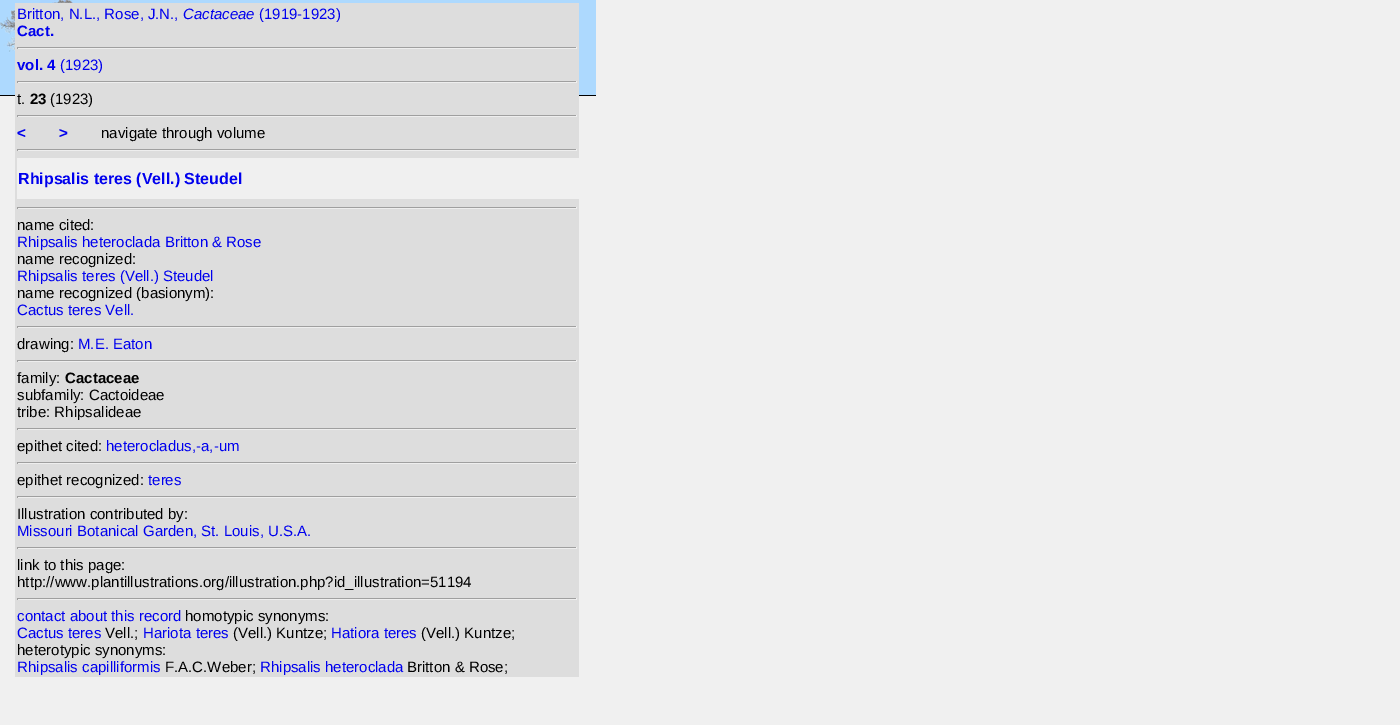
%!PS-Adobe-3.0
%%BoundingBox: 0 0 1400 725
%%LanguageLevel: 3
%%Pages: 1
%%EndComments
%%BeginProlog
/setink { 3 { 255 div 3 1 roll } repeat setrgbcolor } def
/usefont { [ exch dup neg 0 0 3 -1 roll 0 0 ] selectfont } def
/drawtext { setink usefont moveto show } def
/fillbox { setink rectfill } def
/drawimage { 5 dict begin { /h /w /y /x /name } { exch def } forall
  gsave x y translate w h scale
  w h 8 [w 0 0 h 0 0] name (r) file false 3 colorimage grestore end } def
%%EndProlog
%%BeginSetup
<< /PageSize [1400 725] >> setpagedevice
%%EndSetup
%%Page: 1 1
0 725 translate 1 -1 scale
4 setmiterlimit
0 0 1400 725 240 240 240 fillbox
0 0 596 95 173 217 254 fillbox
0 95 596 1 0 0 0 fillbox
(assets/img1.rgb) 0 0 100 94 drawimage
15 3 564 674 221 221 221 fillbox
(Britton, N.L., Rose, J.N.,) 17 19 /LiberationSans-Regular 15 0 0 238 drawtext
(Cactaceae) 183 19 /LiberationSans-Italic 15 0 0 238 drawtext
(\(1919-1923\)) 259 19 /LiberationSans-Regular 15 0 0 238 drawtext
(Cact.) 17 36 /LiberationSans-Bold 15 0 0 238 drawtext
17 47 560 1 159 159 159 fillbox
576 47 1 2 238 238 238 fillbox
17 48 560 1 238 238 238 fillbox
17 47 1 2 159 159 159 fillbox
(vol. 4) 17 70 /LiberationSans-Bold 15 0 0 238 drawtext
(\(1923\)) 60 70 /LiberationSans-Regular 15 0 0 238 drawtext
17 81 560 1 159 159 159 fillbox
576 81 1 2 238 238 238 fillbox
17 82 560 1 238 238 238 fillbox
17 81 1 2 159 159 159 fillbox
(t.) 17 104 /LiberationSans-Regular 15 0 0 0 drawtext
(23) 30 104 /LiberationSans-Bold 15 0 0 0 drawtext
(\(1923\)) 50 104 /LiberationSans-Regular 15 0 0 0 drawtext
17 115 560 1 159 159 159 fillbox
576 115 1 2 238 238 238 fillbox
17 116 560 1 238 238 238 fillbox
17 115 1 2 159 159 159 fillbox
(<) 17 138 /LiberationSans-Bold 15 0 0 238 drawtext
(>) 59 138 /LiberationSans-Bold 15 0 0 238 drawtext
(navigate through volume) 101 138 /LiberationSans-Regular 15 0 0 0 drawtext
17 149 560 1 159 159 159 fillbox
576 149 1 2 238 238 238 fillbox
17 150 560 1 238 238 238 fillbox
17 149 1 2 159 159 159 fillbox
17 158 562 41 240 240 240 fillbox
(Rhipsalis teres \(Vell.\) Steudel) 18 184 /LiberationSans-Bold 16 0 0 238 drawtext
17 207 560 1 159 159 159 fillbox
576 207 1 2 238 238 238 fillbox
17 208 560 1 238 238 238 fillbox
17 207 1 2 159 159 159 fillbox
(name cited:) 17 230 /LiberationSans-Regular 15 0 0 0 drawtext
(Rhipsalis heteroclada Britton & Rose) 17 247 /LiberationSans-Regular 15 0 0 238 drawtext
(name recognized:) 17 264 /LiberationSans-Regular 15 0 0 0 drawtext
(Rhipsalis teres \(Vell.\) Steudel) 17 281 /LiberationSans-Regular 15 0 0 238 drawtext
(name recognized \(basionym\):) 17 298 /LiberationSans-Regular 15 0 0 0 drawtext
(Cactus teres Vell.) 17 315 /LiberationSans-Regular 15 0 0 238 drawtext
17 326 560 1 159 159 159 fillbox
576 326 1 2 238 238 238 fillbox
17 327 560 1 238 238 238 fillbox
17 326 1 2 159 159 159 fillbox
(drawing:) 17 349 /LiberationSans-Regular 15 0 0 0 drawtext
(M.E. Eaton) 78 349 /LiberationSans-Regular 15 0 0 238 drawtext
17 360 560 1 159 159 159 fillbox
576 360 1 2 238 238 238 fillbox
17 361 560 1 238 238 238 fillbox
17 360 1 2 159 159 159 fillbox
(family:) 17 383 /LiberationSans-Regular 15 0 0 0 drawtext
(Cactaceae) 65 383 /LiberationSans-Bold 15 0 0 0 drawtext
(subfamily: Cactoideae) 17 400 /LiberationSans-Regular 15 0 0 0 drawtext
(tribe: Rhipsalideae) 17 417 /LiberationSans-Regular 15 0 0 0 drawtext
17 428 560 1 159 159 159 fillbox
576 428 1 2 238 238 238 fillbox
17 429 560 1 238 238 238 fillbox
17 428 1 2 159 159 159 fillbox
(epithet cited:) 17 451 /LiberationSans-Regular 15 0 0 0 drawtext
(heterocladus,-a,-um) 106 451 /LiberationSans-Regular 15 0 0 238 drawtext
17 462 560 1 159 159 159 fillbox
576 462 1 2 238 238 238 fillbox
17 463 560 1 238 238 238 fillbox
17 462 1 2 159 159 159 fillbox
(epithet recognized:) 17 485 /LiberationSans-Regular 15 0 0 0 drawtext
(teres) 148 485 /LiberationSans-Regular 15 0 0 238 drawtext
17 496 560 1 159 159 159 fillbox
576 496 1 2 238 238 238 fillbox
17 497 560 1 238 238 238 fillbox
17 496 1 2 159 159 159 fillbox
(Illustration contributed by:) 17 519 /LiberationSans-Regular 15 0 0 0 drawtext
(Missouri Botanical Garden, St. Louis, U.S.A.) 17 536 /LiberationSans-Regular 15 0 0 238 drawtext
17 547 560 1 159 159 159 fillbox
576 547 1 2 238 238 238 fillbox
17 548 560 1 238 238 238 fillbox
17 547 1 2 159 159 159 fillbox
(link to this page:) 17 570 /LiberationSans-Regular 15 0 0 0 drawtext
(http://www.plantillustrations.org/illustration.php?id_illustration=51194) 17 587 /LiberationSans-Regular 15 0 0 0 drawtext
17 598 560 1 159 159 159 fillbox
576 598 1 2 238 238 238 fillbox
17 599 560 1 238 238 238 fillbox
17 598 1 2 159 159 159 fillbox
(contact about this record) 17 621 /LiberationSans-Regular 15 0 0 238 drawtext
(homotypic synonyms:) 185 621 /LiberationSans-Regular 15 0 0 0 drawtext
(Cactus teres) 17 638 /LiberationSans-Regular 15 0 0 238 drawtext
(Vell.;) 105 638 /LiberationSans-Regular 15 0 0 0 drawtext
(Hariota teres) 143 638 /LiberationSans-Regular 15 0 0 238 drawtext
(\(Vell.\) Kuntze;) 233 638 /LiberationSans-Regular 15 0 0 0 drawtext
(Hatiora teres) 331 638 /LiberationSans-Regular 15 0 0 238 drawtext
(\(Vell.\) Kuntze;) 421 638 /LiberationSans-Regular 15 0 0 0 drawtext
(heterotypic synonyms:) 17 655 /LiberationSans-Regular 15 0 0 0 drawtext
(Rhipsalis capilliformis) 17 672 /LiberationSans-Regular 15 0 0 238 drawtext
(F.A.C.Weber;) 165 672 /LiberationSans-Regular 15 0 0 0 drawtext
(Rhipsalis heteroclada) 260 672 /LiberationSans-Regular 15 0 0 238 drawtext
(Britton & Rose;) 407 672 /LiberationSans-Regular 15 0 0 0 drawtext
showpage
%%EOF
